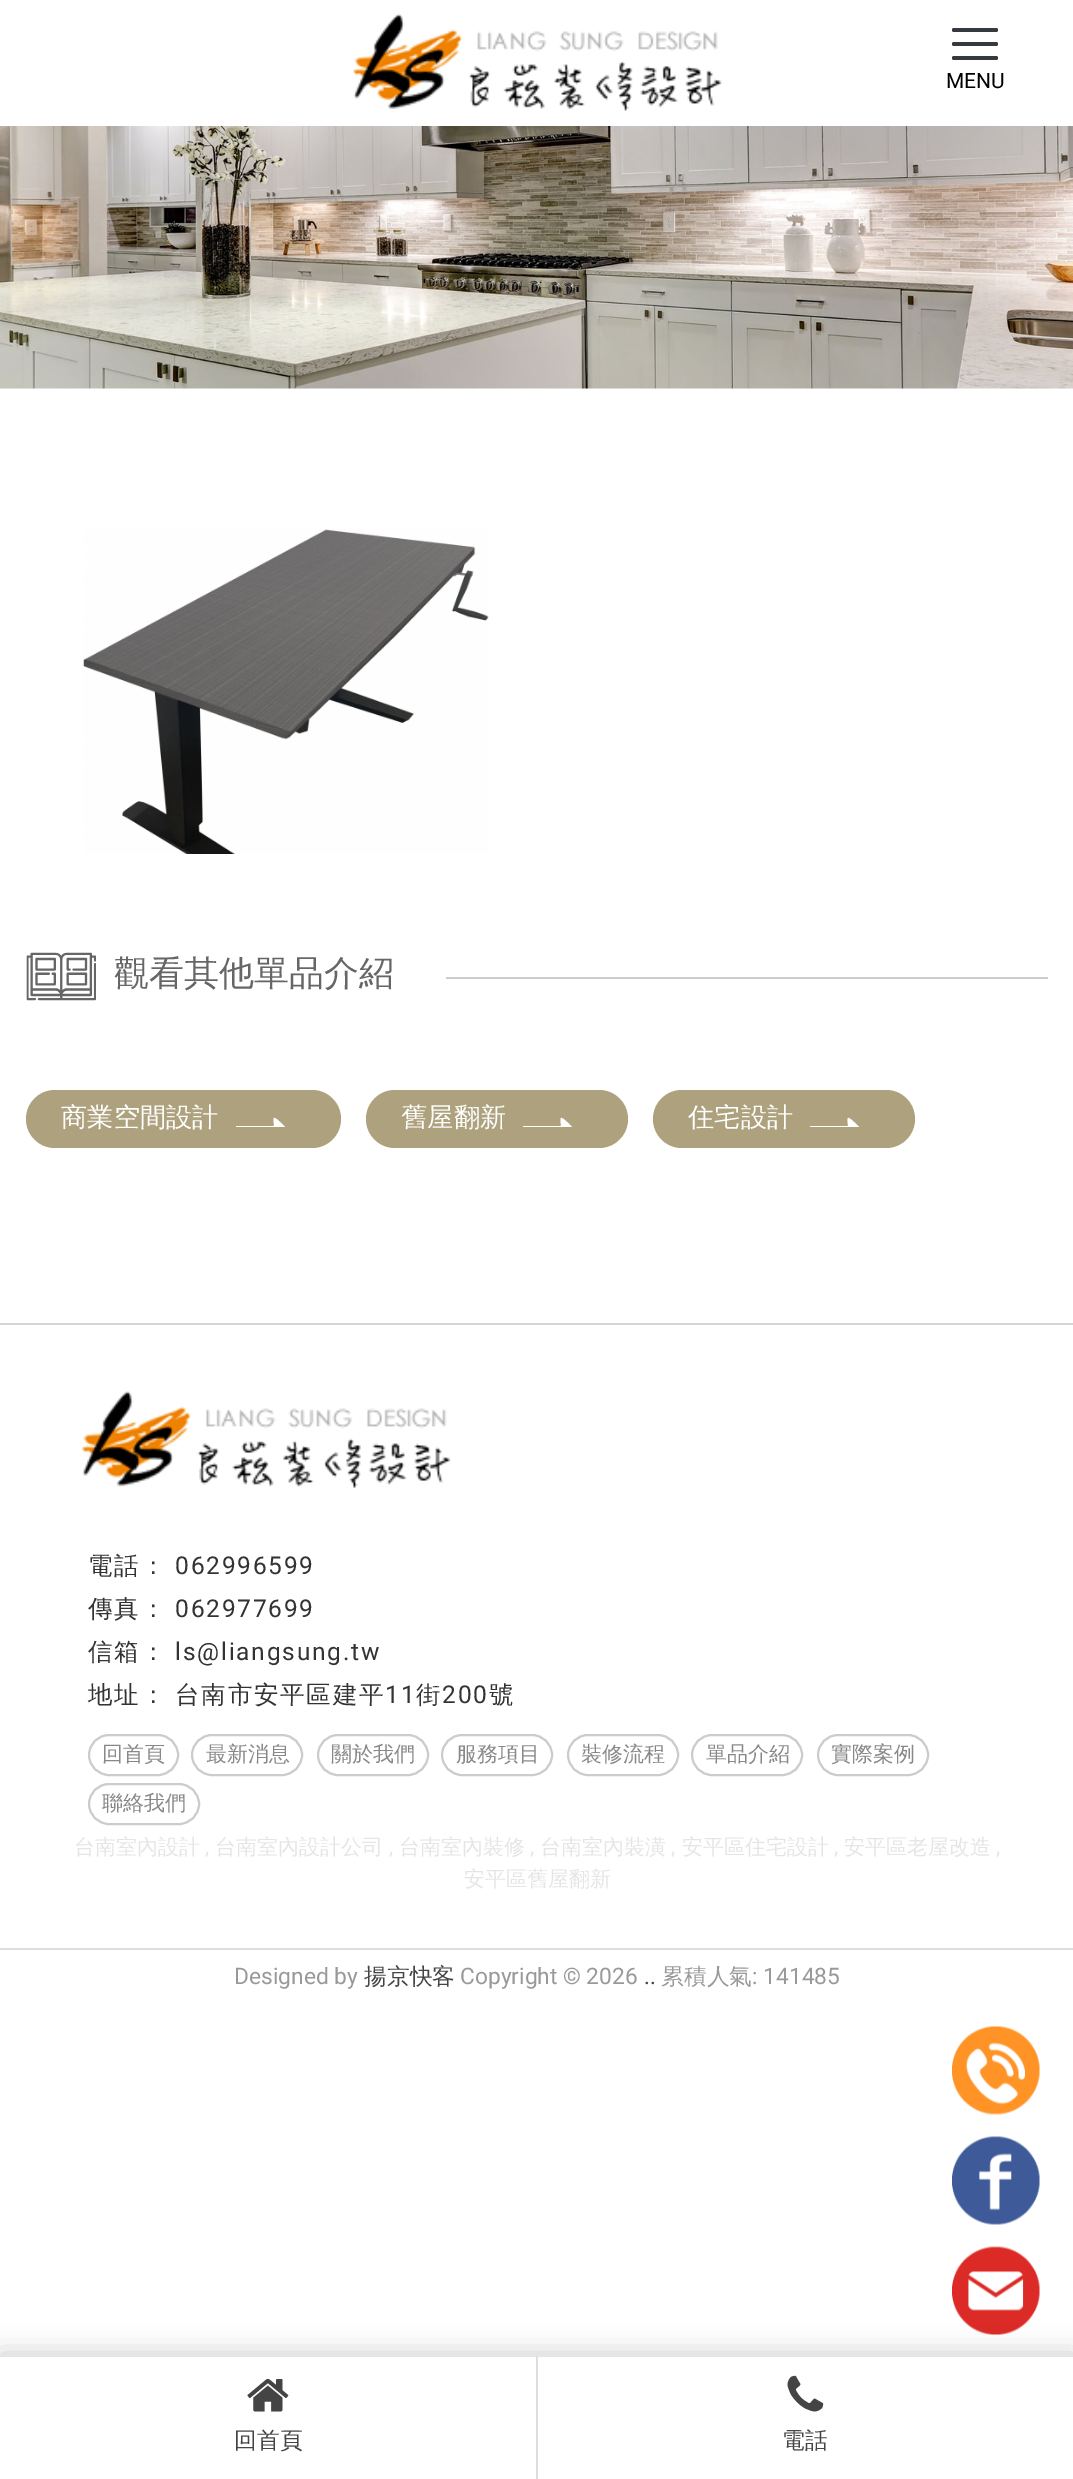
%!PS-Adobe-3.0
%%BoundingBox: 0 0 1073 2479
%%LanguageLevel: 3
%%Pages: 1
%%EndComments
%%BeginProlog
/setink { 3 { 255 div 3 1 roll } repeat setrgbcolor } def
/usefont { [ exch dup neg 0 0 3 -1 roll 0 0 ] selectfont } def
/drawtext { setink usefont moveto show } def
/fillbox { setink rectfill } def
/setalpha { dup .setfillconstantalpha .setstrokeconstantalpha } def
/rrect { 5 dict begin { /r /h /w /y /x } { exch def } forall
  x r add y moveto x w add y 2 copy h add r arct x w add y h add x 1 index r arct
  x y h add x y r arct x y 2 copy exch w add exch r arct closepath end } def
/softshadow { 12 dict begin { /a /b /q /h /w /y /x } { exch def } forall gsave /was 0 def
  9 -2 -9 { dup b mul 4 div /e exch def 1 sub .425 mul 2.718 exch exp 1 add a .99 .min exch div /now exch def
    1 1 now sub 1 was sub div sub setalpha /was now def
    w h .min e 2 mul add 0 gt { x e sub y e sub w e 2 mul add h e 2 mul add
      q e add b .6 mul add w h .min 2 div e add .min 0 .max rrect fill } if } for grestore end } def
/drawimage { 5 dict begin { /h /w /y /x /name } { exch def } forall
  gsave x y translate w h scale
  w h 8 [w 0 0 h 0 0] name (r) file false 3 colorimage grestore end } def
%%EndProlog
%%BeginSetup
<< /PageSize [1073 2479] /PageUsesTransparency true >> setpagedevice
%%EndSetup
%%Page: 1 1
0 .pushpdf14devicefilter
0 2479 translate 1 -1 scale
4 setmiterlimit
0 0 1073 2479 255 255 255 fillbox
(assets/img1.rgb) 353 13 369 98 drawimage
52 58 64 setink
952 56 46 4 2 rrect fill
952 42 46 4 2 rrect fill
952 28 46 4 2 rrect fill
(MENU) 946 88 /Roboto-Regular 21 0 0 0 drawtext
(assets/img2.rgb) 0 126 1073 263 drawimage
(assets/img3.rgb) 83 529 406 325 drawimage
(assets/img4.rgb) 26 952 70 49 drawimage
(觀看其他單品介紹) 114 985 /WenQuanYiZenHei-Medium 35 102 102 102 drawtext
446 977 602 2 204 204 204 fillbox
173 161 126 setink
26 1090 315 58 29 rrect fill
(商業空間設計) 61 1126 /WenQuanYiZenHei-Medium 26.25 255 255 255 drawtext
gsave
236 1103 53 24 rectclip
287 1129 moveto 275 1140 lineto 273 1141 274 1134 274 1133 curveto 243 1133 lineto 238 1133 236 1135 236 1131 curveto 236 1130 235 1126 237 1126 curveto 274 1126 lineto 274 1124 273 1119 274 1118 curveto 276 1117 287 1129 287 1129 curveto closepath fill
grestore
173 161 126 setink
366 1090 262 58 29 rrect fill
(舊屋翻新) 401 1126 /WenQuanYiZenHei-Medium 26.25 255 255 255 drawtext
gsave
523 1103 53 24 rectclip
574 1129 moveto 562 1140 lineto 560 1141 561 1134 561 1133 curveto 530 1133 lineto 525 1133 523 1135 523 1131 curveto 523 1130 522 1126 524 1126 curveto 561 1126 lineto 561 1124 560 1119 561 1118 curveto 563 1117 574 1129 574 1129 curveto closepath fill
grestore
173 161 126 setink
653 1090 262 58 29 rrect fill
(住宅設計) 688 1126 /WenQuanYiZenHei-Medium 26.25 255 255 255 drawtext
gsave
810 1103 53 24 rectclip
861 1129 moveto 849 1140 lineto 847 1141 848 1134 848 1133 curveto 817 1133 lineto 812 1133 810 1135 810 1131 curveto 810 1130 809 1126 811 1126 curveto 848 1126 lineto 848 1124 847 1119 848 1118 curveto 850 1117 861 1129 861 1129 curveto closepath fill
grestore
0 1323 1073 2 213 213 213 fillbox
(assets/img5.rgb) 81 1391 370 97 drawimage
/WenQuanYiZenHei-Medium 24.5 usefont
51 51 51 setink
88 1574 moveto 1.75 0 (電話：) ashow
/Roboto-Regular 24.5 usefont
175 1574 moveto 1.75 0 (062996599) ashow
/WenQuanYiZenHei-Medium 24.5 usefont
88 1617 moveto 1.75 0 (傳真：) ashow
/Roboto-Regular 24.5 usefont
175 1617 moveto 1.75 0 (062977699) ashow
/WenQuanYiZenHei-Medium 24.5 usefont
88 1660 moveto 1.75 0 (信箱：) ashow
/Roboto-Regular 24.5 usefont
175 1660 moveto 1.75 0 (ls@liangsung.tw) ashow
/WenQuanYiZenHei-Medium 24.5 usefont
88 1703 moveto 1.75 0 (地址：) ashow
175 1703 moveto 1.75 0 (台南市安平區建平) ashow
/Roboto-Regular 24.5 usefont
385 1703 moveto 1.75 0 (11) ashow
/WenQuanYiZenHei-Medium 24.5 usefont
416 1703 moveto 1.75 0 (街) ashow
/Roboto-Regular 24.5 usefont
442 1703 moveto 1.75 0 (200) ashow
/WenQuanYiZenHei-Medium 24.5 usefont
489 1703 moveto 1.75 0 (號) ashow
204 204 204 setink
2 setlinewidth
89 1735 89 40 20 rrect stroke
(回首頁) 102 1761 /WenQuanYiZenHei-Medium 21 136 136 136 drawtext
204 204 204 setink
192 1735 110 40 20 rrect stroke
(最新消息) 206 1761 /WenQuanYiZenHei-Medium 21 136 136 136 drawtext
204 204 204 setink
318 1735 110 40 20 rrect stroke
(關於我們) 331 1761 /WenQuanYiZenHei-Medium 21 136 136 136 drawtext
204 204 204 setink
442 1735 110 40 20 rrect stroke
(服務項目) 456 1761 /WenQuanYiZenHei-Medium 21 136 136 136 drawtext
204 204 204 setink
568 1735 110 40 20 rrect stroke
(裝修流程) 581 1761 /WenQuanYiZenHei-Medium 21 136 136 136 drawtext
204 204 204 setink
692 1735 110 40 20 rrect stroke
(單品介紹) 706 1761 /WenQuanYiZenHei-Medium 21 136 136 136 drawtext
204 204 204 setink
818 1735 110 40 20 rrect stroke
(實際案例) 831 1761 /WenQuanYiZenHei-Medium 21 136 136 136 drawtext
204 204 204 setink
89 1784 110 40 20 rrect stroke
(聯絡我們) 102 1810 /WenQuanYiZenHei-Medium 21 136 136 136 drawtext
(台南室內設計) 74 1854 /WenQuanYiZenHei-Medium 21 229 229 229 drawtext
(,) 205 1854 /Roboto-Regular 21 229 229 229 drawtext
(台南室內設計公司) 215 1854 /WenQuanYiZenHei-Medium 21 229 229 229 drawtext
(,) 389 1854 /Roboto-Regular 21 229 229 229 drawtext
(台南室內裝修) 399 1854 /WenQuanYiZenHei-Medium 21 229 229 229 drawtext
(,) 530 1854 /Roboto-Regular 21 229 229 229 drawtext
(台南室內裝潢) 540 1854 /WenQuanYiZenHei-Medium 21 229 229 229 drawtext
(,) 671 1854 /Roboto-Regular 21 229 229 229 drawtext
(安平區住宅設計) 682 1854 /WenQuanYiZenHei-Medium 21 229 229 229 drawtext
(,) 834 1854 /Roboto-Regular 21 229 229 229 drawtext
(安平區老屋改造) 844 1854 /WenQuanYiZenHei-Medium 21 229 229 229 drawtext
(,) 996 1854 /Roboto-Regular 21 229 229 229 drawtext
(安平區舊屋翻新) 464 1886 /WenQuanYiZenHei-Medium 21 229 229 229 drawtext
(assets/img6.rgb) 952 2026 88 89 drawimage
(assets/img7.rgb) 952 2136 88 89 drawimage
(assets/img8.rgb) 952 2246 88 89 drawimage
0 1948 1073 2 221 221 221 fillbox
(Designed by) 234 1984 /Roboto-Regular 22.75 153 153 153 drawtext
(揚京快客) 364 1984 /WenQuanYiZenHei-Medium 22.75 68 68 68 drawtext
(Copyright © 2026) 460 1984 /Roboto-Regular 22.75 153 153 153 drawtext
(..) 644 1984 /Roboto-Regular 22.75 68 68 68 drawtext
(累積人氣) 661 1984 /WenQuanYiZenHei-Medium 22.75 153 153 153 drawtext
(: 141485) 752 1984 /Roboto-Regular 22.75 153 153 153 drawtext
0 0 0 setink
0 2354 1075 122 0 13 0.2 softshadow
0 2357 1073 122 255 255 255 fillbox
536 2357 2 122 221 221 221 fillbox
(assets/img9.rgb) 247 2378 42 34 drawimage
(回首頁) 234 2448 /WenQuanYiZenHei-Medium 22.75 68 68 68 drawtext
(assets/img10.rgb) 787 2375 37 37 drawimage
(電話) 782 2448 /WenQuanYiZenHei-Medium 22.75 68 68 68 drawtext
.poppdf14devicefilter showpage
%%EOF
